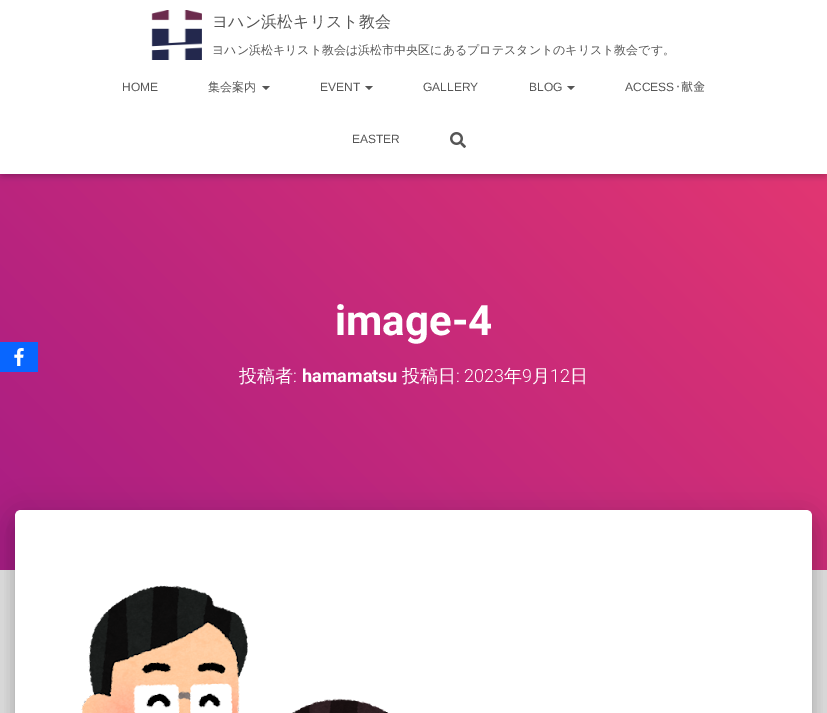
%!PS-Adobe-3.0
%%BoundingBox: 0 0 827 713
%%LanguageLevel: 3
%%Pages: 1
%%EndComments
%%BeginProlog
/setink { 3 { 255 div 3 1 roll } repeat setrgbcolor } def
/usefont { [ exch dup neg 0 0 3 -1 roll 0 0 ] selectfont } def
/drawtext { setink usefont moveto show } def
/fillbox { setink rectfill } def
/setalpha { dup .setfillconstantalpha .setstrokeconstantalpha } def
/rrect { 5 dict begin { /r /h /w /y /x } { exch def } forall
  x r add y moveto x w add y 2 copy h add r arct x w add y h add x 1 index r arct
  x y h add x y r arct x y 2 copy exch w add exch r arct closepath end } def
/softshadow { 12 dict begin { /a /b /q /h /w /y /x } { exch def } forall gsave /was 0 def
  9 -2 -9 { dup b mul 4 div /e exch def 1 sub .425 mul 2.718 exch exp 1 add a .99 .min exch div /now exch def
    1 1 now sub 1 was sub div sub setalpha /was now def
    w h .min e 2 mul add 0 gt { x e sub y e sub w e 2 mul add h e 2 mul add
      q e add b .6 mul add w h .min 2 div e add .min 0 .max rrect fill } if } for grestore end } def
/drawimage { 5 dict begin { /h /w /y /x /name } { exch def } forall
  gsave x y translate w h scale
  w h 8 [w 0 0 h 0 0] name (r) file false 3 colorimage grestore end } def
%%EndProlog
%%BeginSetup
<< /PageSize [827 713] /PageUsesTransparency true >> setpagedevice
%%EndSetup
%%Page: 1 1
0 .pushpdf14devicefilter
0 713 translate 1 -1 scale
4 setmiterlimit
0 0 827 713 229 229 229 fillbox
gsave 0 174 moveto 827 174 lineto 827 570 lineto 0 570 lineto closepath clip newpath
<< /ShadingType 2 /ColorSpace /DeviceRGB /Coords [64 634 763 -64] /Extend [true true] /Function << /FunctionType 2 /Domain [0 1] /C0 [0.659 0.114 0.518] /C1 [0.918 0.224 0.435] /N 1 >> >> shfill grestore
0 342 38 30 8 102 255 fillbox
(assets/img1.rgb) 14 348 10 18 drawimage
0 0 0 setink
2 6 823 170 0 2.5 0.1 softshadow
0 1 827 174 0 5 0.12 softshadow
6 7 815 162 0 5 0.42 softshadow
0 0 827 174 255 255 255 fillbox
(assets/img2.rgb) 151 10 51 50 drawimage
(ヨハン浜松キリスト教会) 212 27 /WenQuanYiZenHei-Medium 16 85 85 85 drawtext
(ヨハン浜松キリスト教会は浜松市中央区にあるプロテスタントのキリスト教会です。) 212 54 /WenQuanYiZenHei-Medium 12 85 85 85 drawtext
(HOME) 122 91 /LiberationSans-Regular 12 85 85 85 drawtext
(集会案内) 208 91 /WenQuanYiZenHei-Medium 12 85 85 85 drawtext
262 86 moveto 270 86 lineto 266 90 lineto closepath fill
(EVENT) 320 91 /LiberationSans-Regular 12 85 85 85 drawtext
365 86 moveto 373 86 lineto 369 90 lineto closepath fill
(GALLERY) 423 91 /LiberationSans-Regular 12 85 85 85 drawtext
(BLOG) 529 91 /LiberationSans-Regular 12 85 85 85 drawtext
567 86 moveto 575 86 lineto 571 90 lineto closepath fill
(ACCESS) 625 91 /LiberationSans-Regular 12 85 85 85 drawtext
(･献金) 675 91 /IPAPGothic-Regular 12 85 85 85 drawtext
(EASTER) 352 143 /LiberationSans-Regular 12 85 85 85 drawtext
(assets/img3.rgb) 450 132 16 16 drawimage
(image-4) 335 335 /Roboto-Bold 42 255 255 255 drawtext
(投稿者) 239 382 /WenQuanYiZenHei-Medium 18 255 255 255 drawtext
(:) 293 382 /Roboto-Light 18 255 255 255 drawtext
(hamamatsu) 302 382 /Roboto-Bold 18 255 255 255 drawtext
(投稿日) 402 382 /WenQuanYiZenHei-Medium 18 255 255 255 drawtext
(: 2023) 456 382 /Roboto-Light 18 255 255 255 drawtext
(年) 504 382 /WenQuanYiZenHei-Medium 18 255 255 255 drawtext
(9) 522 382 /Roboto-Light 18 255 255 255 drawtext
(月) 532 382 /WenQuanYiZenHei-Medium 18 255 255 255 drawtext
(12) 550 382 /Roboto-Light 18 255 255 255 drawtext
(日) 570 382 /WenQuanYiZenHei-Medium 18 255 255 255 drawtext
0 0 0 setink
20 523 787 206 1 5 0.2 softshadow
10 511 807 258 11 15 0.12 softshadow
13 524 801 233 8 12 0.14 softshadow
255 255 255 setink
21 510 moveto 806 510 lineto 809.5 510 812 512.5 812 516 curveto 812 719 lineto 15 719 lineto 15 516 lineto 15 512.5 17.5 510 21 510 curveto closepath fill
(assets/img4.rgb) 81 585 308 128 drawimage
.poppdf14devicefilter showpage
%%EOF
